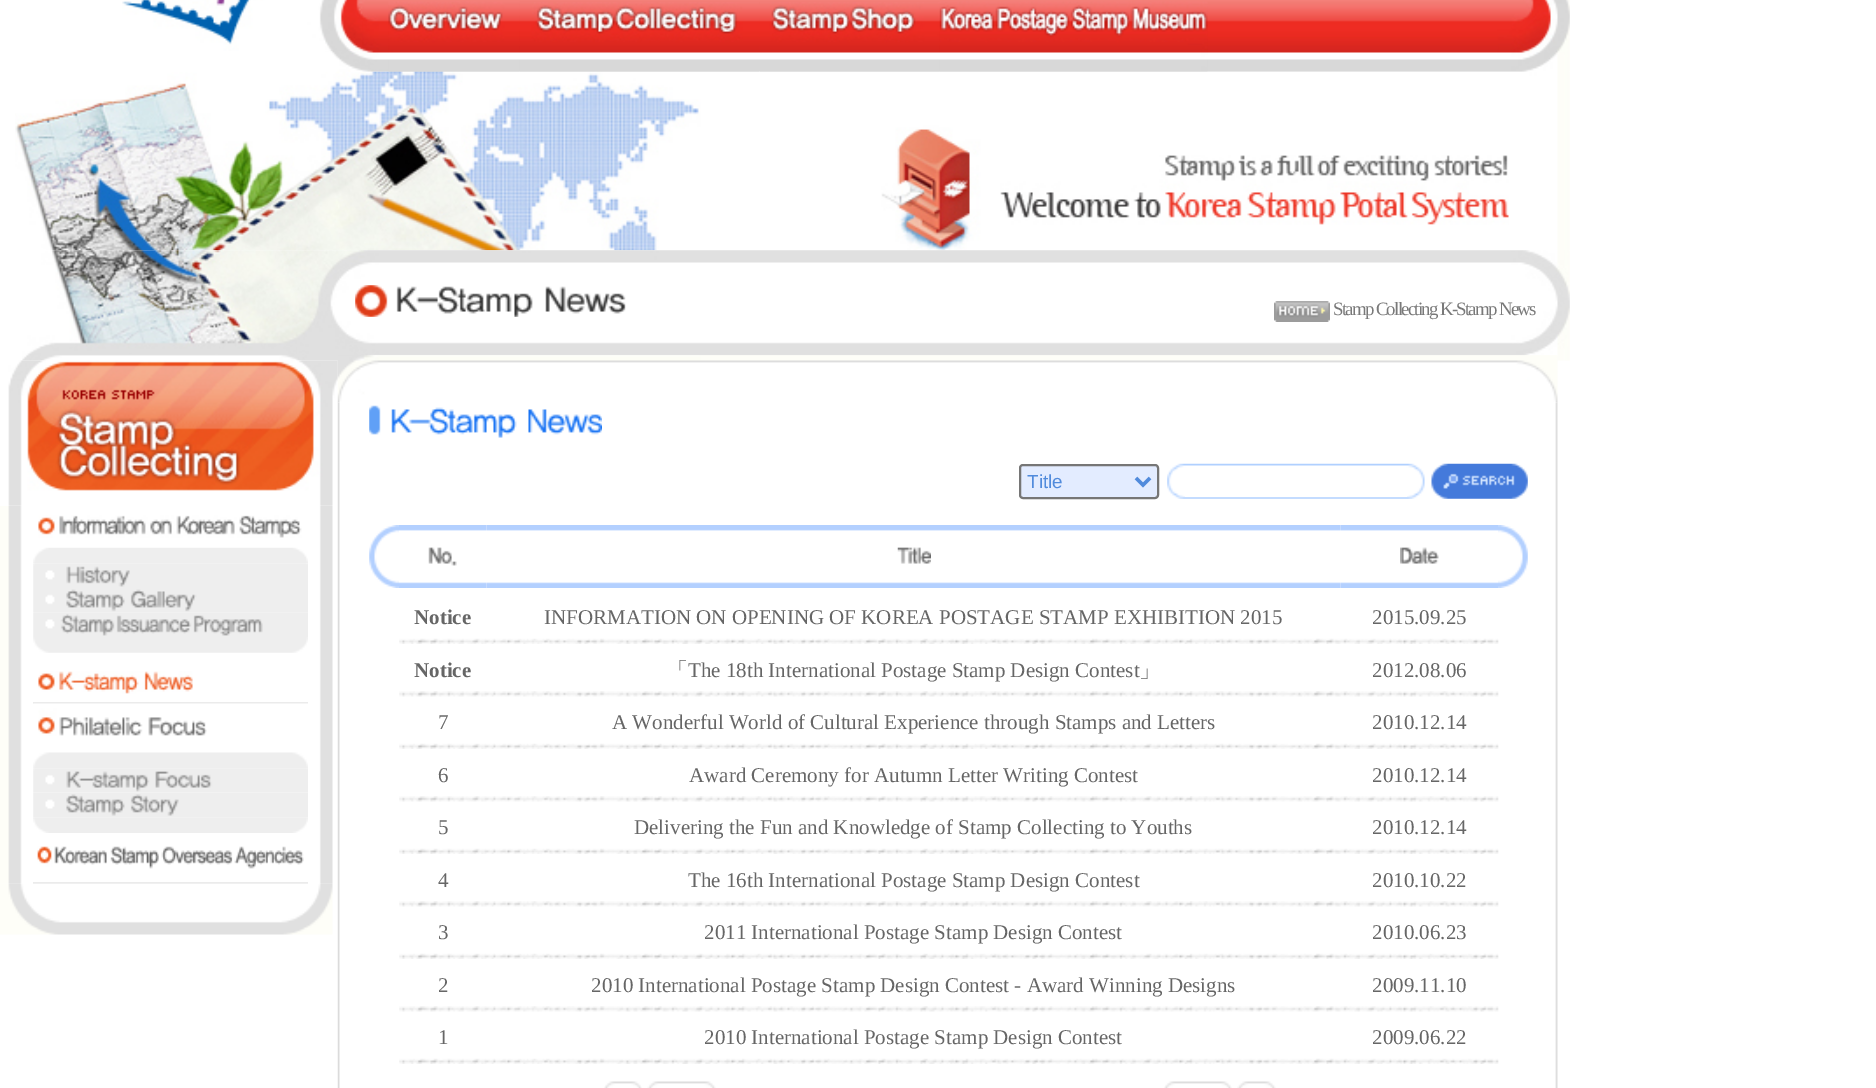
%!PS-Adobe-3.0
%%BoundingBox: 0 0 1876 1088
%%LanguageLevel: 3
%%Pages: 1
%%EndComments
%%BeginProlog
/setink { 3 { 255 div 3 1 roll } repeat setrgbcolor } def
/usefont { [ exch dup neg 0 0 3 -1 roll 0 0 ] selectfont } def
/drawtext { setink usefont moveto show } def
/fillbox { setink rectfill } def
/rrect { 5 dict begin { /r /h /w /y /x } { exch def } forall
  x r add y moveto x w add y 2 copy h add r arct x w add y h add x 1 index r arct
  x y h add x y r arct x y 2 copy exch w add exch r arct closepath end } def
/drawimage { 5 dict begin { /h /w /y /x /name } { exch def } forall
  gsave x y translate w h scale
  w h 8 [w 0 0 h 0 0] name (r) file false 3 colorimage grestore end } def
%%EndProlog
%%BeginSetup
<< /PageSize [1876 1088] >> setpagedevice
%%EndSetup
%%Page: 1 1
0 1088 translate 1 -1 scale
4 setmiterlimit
0 0 1876 1088 255 255 255 fillbox
(assets/img1.rgb) 320 0 1250 72 drawimage
(assets/img2.rgb) 122 0 241 51 drawimage
(assets/img3.rgb) 388 1 132 71 drawimage
(assets/img4.rgb) 520 2 239 70 drawimage
(assets/img5.rgb) 760 2 180 70 drawimage
(assets/img6.rgb) 939 1 269 71 drawimage
(assets/img7.rgb) 15 71 1555 180 drawimage
(assets/img8.rgb) 1000 155 509 70 drawimage
(assets/img9.rgb) 22 250 1548 111 drawimage
(assets/img10.rgb) 355 285 33 32 drawimage
(assets/img11.rgb) 396 286 230 31 drawimage
(assets/img12.rgb) 1274 301 56 21 drawimage
/LiberationSerif-Regular 18.9 usefont
121 121 121 setink
1333 315 moveto -1.75 0 (Stamp Collecting K-Stamp News) ashow
(assets/img13.rgb) 8 360 330 146 drawimage
(assets/img14.rgb) 0 506 333 378 drawimage
(assets/img15.rgb) 38 515 264 23 drawimage
(assets/img16.rgb) 33 547 275 17 drawimage
(assets/img17.rgb) 33 563 275 25 drawimage
(assets/img18.rgb) 33 588 275 25 drawimage
(assets/img19.rgb) 33 612 275 25 drawimage
(assets/img20.rgb) 33 637 275 16 drawimage
33 702 275 2 235 235 235 fillbox
(assets/img21.rgb) 38 671 155 23 drawimage
(assets/img22.rgb) 33 703 275 33 drawimage
(assets/img23.rgb) 33 752 275 17 drawimage
(assets/img24.rgb) 33 768 275 25 drawimage
(assets/img25.rgb) 33 793 275 25 drawimage
(assets/img26.rgb) 33 817 275 16 drawimage
33 882 275 2 235 235 235 fillbox
(assets/img27.rgb) 37 846 267 23 drawimage
(assets/img28.rgb) 0 883 333 52 drawimage
(assets/img29.rgb) 337 355 1221 48 drawimage
(assets/img30.rgb) 337 402 1221 686 drawimage
(assets/img31.rgb) 369 405 233 33 drawimage
227 236 255 setink
1020 465 138 33 3 rrect gsave fill grestore
118 118 118 setink
2 setlinewidth
stroke
81 139 220 setink
3.5 setlinewidth
1136 478 moveto 1143 485 lineto 1150 478 lineto stroke
(Title) 1027 488 /LiberationSans-Regular 18.9 81 139 220 drawtext
(assets/img32.rgb) 1167 463 258 36 drawimage
1185 496 222 1 255 255 255 fillbox
(assets/img33.rgb) 1431 463 97 36 drawimage
(assets/img34.rgb) 369 525 30 63 drawimage
(assets/img35.rgb) 399 525 88 63 drawimage
(assets/img36.rgb) 428 547 29 19 drawimage
(assets/img37.rgb) 486 525 855 63 drawimage
(assets/img38.rgb) 897 547 34 17 drawimage
(assets/img39.rgb) 1340 525 158 63 drawimage
(assets/img40.rgb) 1400 547 39 17 drawimage
(assets/img41.rgb) 1498 525 30 63 drawimage
(Notice) 414 624 /LiberationSerif-Bold 21 102 102 102 drawtext
(INFORMATION ON OPENING OF KOREA POSTAGE STAMP EXHIBITION 2015) 544 624 /LiberationSerif-Regular 21 102 102 102 drawtext
(2015.09.25) 1372 624 /LiberationSerif-Regular 21 102 102 102 drawtext
(assets/img42.rgb) 399 638 1100 6 drawimage
(Notice) 414 677 /LiberationSerif-Bold 21 102 102 102 drawtext
(「) 667 677 /WenQuanYiZenHei-Medium 21 102 102 102 drawtext
(The 18th International Postage Stamp Design Contest) 688 677 /LiberationSerif-Regular 21 102 102 102 drawtext
(」) 1139 677 /WenQuanYiZenHei-Medium 21 102 102 102 drawtext
(2012.08.06) 1372 677 /LiberationSerif-Regular 21 102 102 102 drawtext
(assets/img43.rgb) 399 691 1100 6 drawimage
(7) 438 729 /LiberationSerif-Regular 21 102 102 102 drawtext
(A Wonderful World of Cultural Experience through Stamps and Letters) 612 729 /LiberationSerif-Regular 21 102 102 102 drawtext
(2010.12.14) 1372 729 /LiberationSerif-Regular 21 102 102 102 drawtext
(assets/img42.rgb) 399 743 1100 6 drawimage
(6) 438 782 /LiberationSerif-Regular 21 102 102 102 drawtext
(Award Ceremony for Autumn Letter Writing Contest) 689 782 /LiberationSerif-Regular 21 102 102 102 drawtext
(2010.12.14) 1372 782 /LiberationSerif-Regular 21 102 102 102 drawtext
(assets/img43.rgb) 399 796 1100 6 drawimage
(5) 438 834 /LiberationSerif-Regular 21 102 102 102 drawtext
(Delivering the Fun and Knowledge of Stamp Collecting to Youths) 634 834 /LiberationSerif-Regular 21 102 102 102 drawtext
(2010.12.14) 1372 834 /LiberationSerif-Regular 21 102 102 102 drawtext
(assets/img42.rgb) 399 848 1100 6 drawimage
(4) 438 887 /LiberationSerif-Regular 21 102 102 102 drawtext
(The 16th International Postage Stamp Design Contest) 688 887 /LiberationSerif-Regular 21 102 102 102 drawtext
(2010.10.22) 1372 887 /LiberationSerif-Regular 21 102 102 102 drawtext
(assets/img43.rgb) 399 901 1100 6 drawimage
(3) 438 939 /LiberationSerif-Regular 21 102 102 102 drawtext
(2011 International Postage Stamp Design Contest) 704 939 /LiberationSerif-Regular 21 102 102 102 drawtext
(2010.06.23) 1372 939 /LiberationSerif-Regular 21 102 102 102 drawtext
(assets/img42.rgb) 399 953 1100 6 drawimage
(2) 438 992 /LiberationSerif-Regular 21 102 102 102 drawtext
(2010 International Postage Stamp Design Contest - Award Winning Designs) 591 992 /LiberationSerif-Regular 21 102 102 102 drawtext
(2009.11.10) 1372 992 /LiberationSerif-Regular 21 102 102 102 drawtext
(assets/img43.rgb) 399 1006 1100 6 drawimage
(1) 438 1044 /LiberationSerif-Regular 21 102 102 102 drawtext
(2010 International Postage Stamp Design Contest) 704 1044 /LiberationSerif-Regular 21 102 102 102 drawtext
(2009.06.22) 1372 1044 /LiberationSerif-Regular 21 102 102 102 drawtext
(assets/img42.rgb) 399 1058 1100 6 drawimage
(assets/img44.rgb) 604 1081 38 7 drawimage
(assets/img45.rgb) 647 1081 69 7 drawimage
(assets/img46.rgb) 1164 1081 68 7 drawimage
(assets/img47.rgb) 1237 1081 39 7 drawimage
showpage
%%EOF
